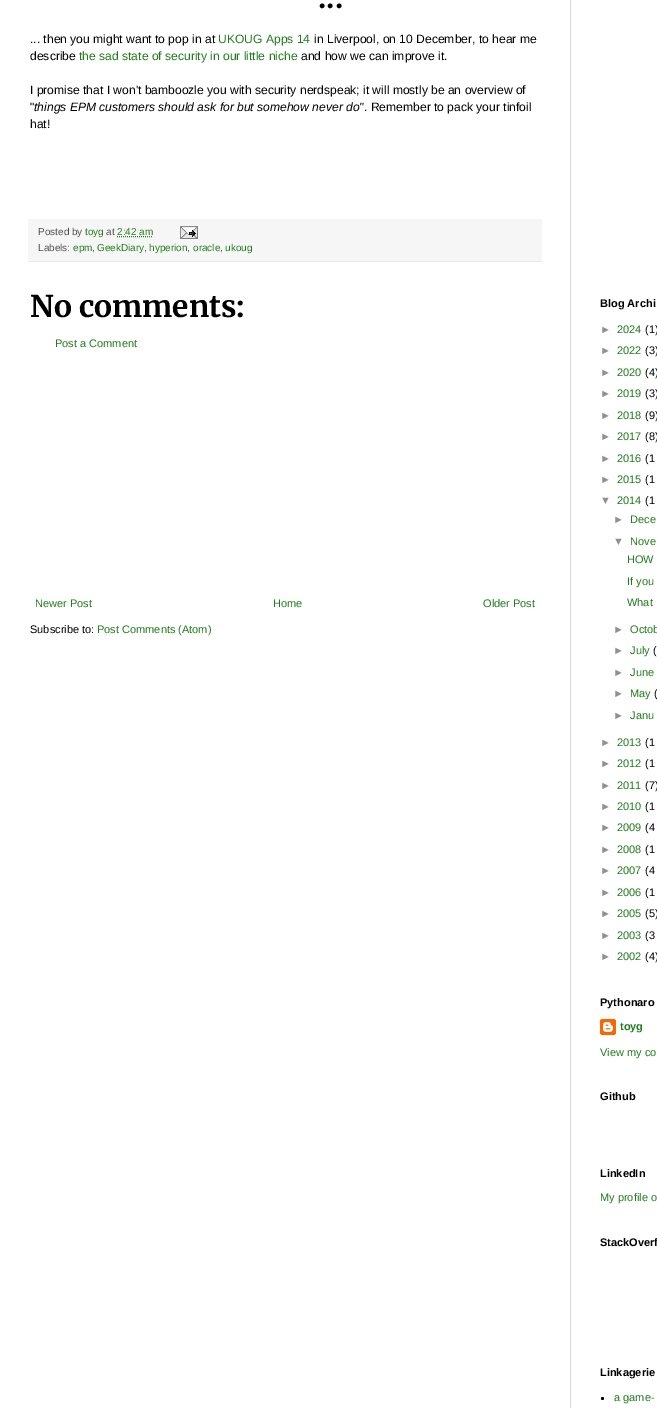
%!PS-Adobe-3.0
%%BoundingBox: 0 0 657 1408
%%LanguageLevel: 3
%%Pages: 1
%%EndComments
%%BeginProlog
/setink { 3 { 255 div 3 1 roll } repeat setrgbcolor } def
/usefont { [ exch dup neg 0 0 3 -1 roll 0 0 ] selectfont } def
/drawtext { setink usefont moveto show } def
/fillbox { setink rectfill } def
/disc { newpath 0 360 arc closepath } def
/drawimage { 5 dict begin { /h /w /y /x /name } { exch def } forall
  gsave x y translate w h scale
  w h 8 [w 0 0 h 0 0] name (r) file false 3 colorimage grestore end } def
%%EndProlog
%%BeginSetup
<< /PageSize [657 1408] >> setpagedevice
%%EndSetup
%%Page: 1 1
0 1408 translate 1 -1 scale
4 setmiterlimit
0 0 657 1408 255 255 255 fillbox
570 0 1 1408 217 217 217 fillbox
(...) 318 8 /Merriweather-Bold 30 0 0 0 drawtext
(... then you might want to pop in at) 30 43 /LiberationSans-Regular 12.1 0 0 0 drawtext
(UKOUG Apps 14) 218 43 /LiberationSans-Regular 12.1 32 124 27 drawtext
(in Liverpool, on 10 December, to hear me) 314 43 /LiberationSans-Regular 12.1 0 0 0 drawtext
(describe) 30 60 /LiberationSans-Regular 12.1 0 0 0 drawtext
(the sad state of security in our little niche) 79 60 /LiberationSans-Regular 12.1 32 124 27 drawtext
(and how we can improve it.) 301 60 /LiberationSans-Regular 12.1 0 0 0 drawtext
(I promise that I won't bamboozle you with security nerdspeak; it will mostly be an overview of) 30 94 /LiberationSans-Regular 12.1 0 0 0 drawtext
(") 30 111 /LiberationSans-Regular 12.1 0 0 0 drawtext
(things EPM customers should ask for but somehow never do") 34 111 /LiberationSans-Italic 12.1 0 0 0 drawtext
(. Remember to pack your tinfoil) 364 111 /LiberationSans-Regular 12.1 0 0 0 drawtext
(hat!) 30 128 /LiberationSans-Regular 12.1 0 0 0 drawtext
28 219 514 42 246 246 246 fillbox
28 261 514 1 234 234 234 fillbox
(Posted by) 38 235 /LiberationSans-Regular 10 79 79 79 drawtext
(toyg) 85 235 /LiberationSans-Regular 10 32 124 27 drawtext
(at) 106 235 /LiberationSans-Regular 10 79 79 79 drawtext
(2:42 am) 117 235 /LiberationSans-Regular 10 32 124 27 drawtext
[1 1] 0 setdash
117 236.5 moveto 153 236.5 lineto stroke
(assets/img1.rgb) 180 226 18 13 drawimage
(Labels:) 38 251 /LiberationSans-Regular 10 79 79 79 drawtext
(epm) 73 251 /LiberationSans-Regular 10 32 124 27 drawtext
(,) 92 251 /LiberationSans-Regular 10 79 79 79 drawtext
(GeekDiary) 97 251 /LiberationSans-Regular 10 32 124 27 drawtext
(hyperion) 149 251 /LiberationSans-Regular 10 32 124 27 drawtext
(oracle) 193 251 /LiberationSans-Regular 10 32 124 27 drawtext
(ukoug) 225 251 /LiberationSans-Regular 10 32 124 27 drawtext
(,) 144 251 /LiberationSans-Regular 10 79 79 79 drawtext
(,) 187 251 /LiberationSans-Regular 10 79 79 79 drawtext
(,) 220 251 /LiberationSans-Regular 10 79 79 79 drawtext
(No comments:) 30 317 /Merriweather-Bold 30 0 0 0 drawtext
(Post a Comment) 55 347 /LiberationSans-Regular 11 32 124 27 drawtext
(Newer Post) 35 607 /LiberationSans-Regular 11 32 124 27 drawtext
(Home) 273 607 /LiberationSans-Regular 11 32 124 27 drawtext
(Older Post) 483 607 /LiberationSans-Regular 11 32 124 27 drawtext
(Subscribe to:) 30 633 /LiberationSans-Regular 11 0 0 0 drawtext
(Post Comments \(Atom\)) 97 633 /LiberationSans-Regular 11 32 124 27 drawtext
(Blog Archi) 600 307 /LiberationSans-Bold 11 0 0 0 drawtext
(►) 600 333 /LiberationSans-Regular 11 144 144 144 drawtext
(2024) 617 333 /LiberationSans-Regular 11 32 124 27 drawtext
(\(1\)) 645 333 /LiberationSans-Regular 11 0 0 0 drawtext
(►) 600 354 /LiberationSans-Regular 11 144 144 144 drawtext
(2022) 617 354 /LiberationSans-Regular 11 32 124 27 drawtext
(\(3\)) 645 354 /LiberationSans-Regular 11 0 0 0 drawtext
(►) 600 376 /LiberationSans-Regular 11 144 144 144 drawtext
(2020) 617 376 /LiberationSans-Regular 11 32 124 27 drawtext
(\(4\)) 645 376 /LiberationSans-Regular 11 0 0 0 drawtext
(►) 600 397 /LiberationSans-Regular 11 144 144 144 drawtext
(2019) 617 397 /LiberationSans-Regular 11 32 124 27 drawtext
(\(3\)) 645 397 /LiberationSans-Regular 11 0 0 0 drawtext
(►) 600 419 /LiberationSans-Regular 11 144 144 144 drawtext
(2018) 617 419 /LiberationSans-Regular 11 32 124 27 drawtext
(\(9\)) 645 419 /LiberationSans-Regular 11 0 0 0 drawtext
(►) 600 440 /LiberationSans-Regular 11 144 144 144 drawtext
(2017) 617 440 /LiberationSans-Regular 11 32 124 27 drawtext
(\(8\)) 645 440 /LiberationSans-Regular 11 0 0 0 drawtext
(►) 600 462 /LiberationSans-Regular 11 144 144 144 drawtext
(2016) 617 462 /LiberationSans-Regular 11 32 124 27 drawtext
(\(1) 645 462 /LiberationSans-Regular 11 0 0 0 drawtext
(►) 600 483 /LiberationSans-Regular 11 144 144 144 drawtext
(2015) 617 483 /LiberationSans-Regular 11 32 124 27 drawtext
(\(1) 645 483 /LiberationSans-Regular 11 0 0 0 drawtext
(▼) 600 504 /LiberationSans-Regular 11 144 144 144 drawtext
(2014) 617 504 /LiberationSans-Regular 11 32 124 27 drawtext
(\(1) 645 504 /LiberationSans-Regular 11 0 0 0 drawtext
(►) 613 523 /LiberationSans-Regular 11 144 144 144 drawtext
(Dece) 630 523 /LiberationSans-Regular 11 32 124 27 drawtext
(▼) 613 545 /LiberationSans-Regular 11 144 144 144 drawtext
(Nove) 630 545 /LiberationSans-Regular 11 32 124 27 drawtext
(HOW) 627 563 /LiberationSans-Regular 11 32 124 27 drawtext
(If you) 627 585 /LiberationSans-Regular 11 32 124 27 drawtext
(What) 627 606 /LiberationSans-Regular 11 32 124 27 drawtext
(►) 613 633 /LiberationSans-Regular 11 144 144 144 drawtext
(Octob) 630 633 /LiberationSans-Regular 11 32 124 27 drawtext
(►) 613 654 /LiberationSans-Regular 11 144 144 144 drawtext
(July) 630 654 /LiberationSans-Regular 11 32 124 27 drawtext
(\() 653 654 /LiberationSans-Regular 11 0 0 0 drawtext
(►) 613 676 /LiberationSans-Regular 11 144 144 144 drawtext
(June) 630 676 /LiberationSans-Regular 11 32 124 27 drawtext
(►) 613 697 /LiberationSans-Regular 11 144 144 144 drawtext
(May) 630 697 /LiberationSans-Regular 11 32 124 27 drawtext
(\() 654 697 /LiberationSans-Regular 11 0 0 0 drawtext
(►) 613 719 /LiberationSans-Regular 11 144 144 144 drawtext
(Janu) 630 719 /LiberationSans-Regular 11 32 124 27 drawtext
(►) 600 746 /LiberationSans-Regular 11 144 144 144 drawtext
(2013) 617 746 /LiberationSans-Regular 11 32 124 27 drawtext
(\(1) 645 746 /LiberationSans-Regular 11 0 0 0 drawtext
(►) 600 767 /LiberationSans-Regular 11 144 144 144 drawtext
(2012) 617 767 /LiberationSans-Regular 11 32 124 27 drawtext
(\(1) 645 767 /LiberationSans-Regular 11 0 0 0 drawtext
(►) 600 789 /LiberationSans-Regular 11 144 144 144 drawtext
(2011) 617 789 /LiberationSans-Regular 11 32 124 27 drawtext
(\(7\)) 645 789 /LiberationSans-Regular 11 0 0 0 drawtext
(►) 600 810 /LiberationSans-Regular 11 144 144 144 drawtext
(2010) 617 810 /LiberationSans-Regular 11 32 124 27 drawtext
(\(1) 645 810 /LiberationSans-Regular 11 0 0 0 drawtext
(►) 600 831 /LiberationSans-Regular 11 144 144 144 drawtext
(2009) 617 831 /LiberationSans-Regular 11 32 124 27 drawtext
(\(4) 645 831 /LiberationSans-Regular 11 0 0 0 drawtext
(►) 600 853 /LiberationSans-Regular 11 144 144 144 drawtext
(2008) 617 853 /LiberationSans-Regular 11 32 124 27 drawtext
(\(1) 645 853 /LiberationSans-Regular 11 0 0 0 drawtext
(►) 600 874 /LiberationSans-Regular 11 144 144 144 drawtext
(2007) 617 874 /LiberationSans-Regular 11 32 124 27 drawtext
(\(4) 645 874 /LiberationSans-Regular 11 0 0 0 drawtext
(►) 600 896 /LiberationSans-Regular 11 144 144 144 drawtext
(2006) 617 896 /LiberationSans-Regular 11 32 124 27 drawtext
(\(1) 645 896 /LiberationSans-Regular 11 0 0 0 drawtext
(►) 600 917 /LiberationSans-Regular 11 144 144 144 drawtext
(2005) 617 917 /LiberationSans-Regular 11 32 124 27 drawtext
(\(5\)) 645 917 /LiberationSans-Regular 11 0 0 0 drawtext
(►) 600 939 /LiberationSans-Regular 11 144 144 144 drawtext
(2003) 617 939 /LiberationSans-Regular 11 32 124 27 drawtext
(\(3) 645 939 /LiberationSans-Regular 11 0 0 0 drawtext
(►) 600 960 /LiberationSans-Regular 11 144 144 144 drawtext
(2002) 617 960 /LiberationSans-Regular 11 32 124 27 drawtext
(\(4\)) 645 960 /LiberationSans-Regular 11 0 0 0 drawtext
(Pythonaro) 600 1006 /LiberationSans-Bold 11 0 0 0 drawtext
(assets/img2.rgb) 600 1019 16 16 drawimage
(toyg) 620 1030 /LiberationSans-Bold 11 32 124 27 drawtext
(View my co) 600 1056 /LiberationSans-Regular 11 32 124 27 drawtext
(Github) 600 1100 /LiberationSans-Bold 11 0 0 0 drawtext
(LinkedIn) 600 1177 /LiberationSans-Bold 11 0 0 0 drawtext
(My profile o) 600 1201 /LiberationSans-Regular 11 32 124 27 drawtext
(StackOverf) 600 1246 /LiberationSans-Bold 11 0 0 0 drawtext
(Linkagerie) 600 1376 /LiberationSans-Bold 11 0 0 0 drawtext
602.5 1398.5 1.5 disc fill
(a game-) 614 1401 /LiberationSans-Regular 11 32 124 27 drawtext
showpage
%%EOF
